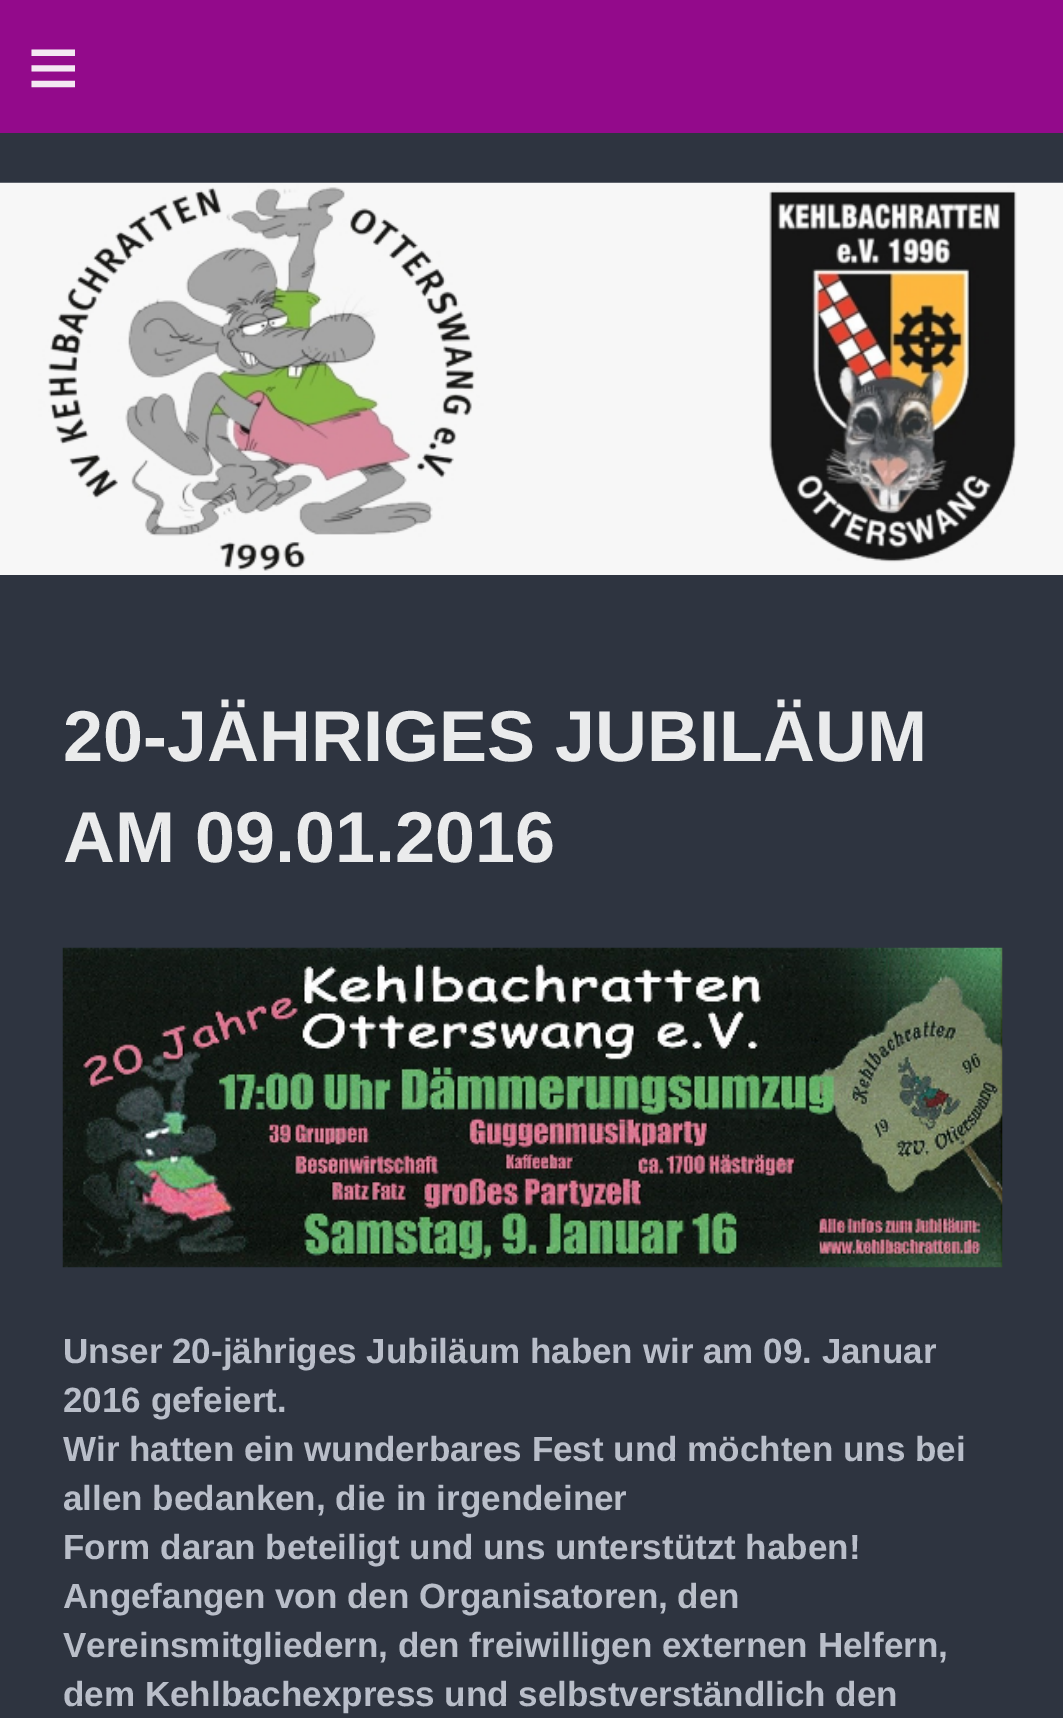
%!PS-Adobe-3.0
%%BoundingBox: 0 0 1063 1718
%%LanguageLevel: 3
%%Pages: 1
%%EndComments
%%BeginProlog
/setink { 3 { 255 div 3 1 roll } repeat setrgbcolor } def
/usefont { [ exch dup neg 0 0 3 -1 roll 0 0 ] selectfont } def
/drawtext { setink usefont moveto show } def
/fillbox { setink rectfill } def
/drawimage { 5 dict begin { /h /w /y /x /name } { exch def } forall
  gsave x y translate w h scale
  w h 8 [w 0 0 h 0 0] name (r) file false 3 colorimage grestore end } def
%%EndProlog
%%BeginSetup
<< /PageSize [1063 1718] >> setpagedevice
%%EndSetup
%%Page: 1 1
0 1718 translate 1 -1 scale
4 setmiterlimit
0 0 1063 1718 46 52 64 fillbox
0 0 1063 133 147 10 139 fillbox
/LiberationSans-Regular 90 usefont
244 231 243 setink
27 98 moveto 26 0 (≡) ashow
(assets/img1.rgb) 0 182 1063 393 drawimage
(20-JÄHRIGES JUBILÄUM) 63 761 /LiberationSans-Bold 72 234 235 236 drawtext
(AM 09.01.2016) 63 862 /LiberationSans-Bold 72 234 235 236 drawtext
(assets/img2.rgb) 62 947 941 321 drawimage
(Unser 20-jähriges Jubiläum haben wir am 09. Januar) 63 1363 /LiberationSans-Bold 35 185 190 201 drawtext
(2016 gefeiert.) 63 1412 /LiberationSans-Bold 35 185 190 201 drawtext
(Wir hatten ein wunderbares Fest und möchten uns bei) 63 1461 /LiberationSans-Bold 35 185 190 201 drawtext
(allen bedanken, die in irgendeiner) 63 1510 /LiberationSans-Bold 35 185 190 201 drawtext
(Form daran beteiligt und uns unterstützt haben!) 63 1559 /LiberationSans-Bold 35 185 190 201 drawtext
(Angefangen von den Organisatoren, den) 63 1608 /LiberationSans-Bold 35 185 190 201 drawtext
(Vereinsmitgliedern, den freiwilligen externen Helfern,) 63 1657 /LiberationSans-Bold 35 185 190 201 drawtext
(dem Kehlbachexpress und selbstverständlich den) 63 1706 /LiberationSans-Bold 35 185 190 201 drawtext
showpage
%%EOF
